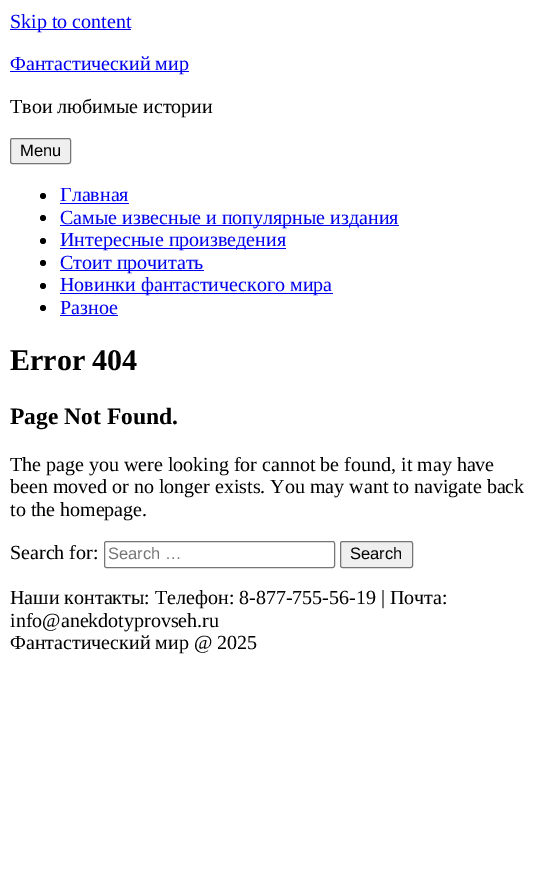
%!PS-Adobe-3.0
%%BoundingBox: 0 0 542 874
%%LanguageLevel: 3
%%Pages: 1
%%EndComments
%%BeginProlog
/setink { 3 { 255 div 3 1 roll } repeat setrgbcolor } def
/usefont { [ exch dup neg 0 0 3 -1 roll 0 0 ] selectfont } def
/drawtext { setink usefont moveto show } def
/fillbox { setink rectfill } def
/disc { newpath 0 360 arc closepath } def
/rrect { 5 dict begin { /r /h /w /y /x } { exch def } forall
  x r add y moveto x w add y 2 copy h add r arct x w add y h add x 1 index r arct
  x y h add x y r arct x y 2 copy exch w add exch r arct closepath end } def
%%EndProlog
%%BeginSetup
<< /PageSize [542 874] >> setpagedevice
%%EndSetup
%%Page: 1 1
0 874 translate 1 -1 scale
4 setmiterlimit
0 0 542 874 255 255 255 fillbox
10 29 121 1 0 0 238 fillbox
(Skip to content) 10 28 /LiberationSerif-Regular 20 0 0 238 drawtext
10 71 179 1 0 0 238 fillbox
(Фантастический мир) 10 70 /LiberationSerif-Regular 20 0 0 238 drawtext
(Твои любимые истории) 10 113 /LiberationSerif-Regular 20 0 0 0 drawtext
239 239 239 setink
10.5 138.5 60 25 2 rrect gsave fill grestore
118 118 118 setink
stroke
(Menu) 20 156 /LiberationSans-Regular 16.5 0 0 0 drawtext
43 196 3 disc fill
(Главная) 60 201 /LiberationSerif-Regular 20 0 0 238 drawtext
60 203 69 1 0 0 238 fillbox
0 0 0 setink
43 218 3 disc fill
60 225 339 1 0 0 238 fillbox
(Самые извесные и популярные издания) 60 224 /LiberationSerif-Regular 20 0 0 238 drawtext
0 0 0 setink
43 241 3 disc fill
60 248 226 1 0 0 238 fillbox
(Интересные произведения) 60 246 /LiberationSerif-Regular 20 0 0 238 drawtext
0 0 0 setink
43 263 3 disc fill
60 270 144 1 0 0 238 fillbox
(Стоит прочитать) 60 269 /LiberationSerif-Regular 20 0 0 238 drawtext
0 0 0 setink
43 286 3 disc fill
60 293 273 1 0 0 238 fillbox
(Новинки фантастического мира) 60 291 /LiberationSerif-Regular 20 0 0 238 drawtext
0 0 0 setink
43 308 3 disc fill
(Разное) 60 314 /LiberationSerif-Regular 20 0 0 238 drawtext
60 315 58 1 0 0 238 fillbox
(Error 404) 10 370 /LiberationSerif-Bold 30 0 0 0 drawtext
(Page Not Found.) 10 424 /LiberationSerif-Bold 23.5 0 0 0 drawtext
(The page you were looking for cannot be found, it may have) 10 471 /LiberationSerif-Regular 20 0 0 0 drawtext
(been moved or no longer exists. You may want to navigate back) 10 493 /LiberationSerif-Regular 20 0 0 0 drawtext
(to the homepage.) 10 516 /LiberationSerif-Regular 20 0 0 0 drawtext
(Search for:) 10 559 /LiberationSerif-Regular 20 0 0 0 drawtext
118 118 118 setink
104.5 541.5 230 26 2 rrect stroke
(Search …) 108 559 /LiberationSans-Regular 16.5 117 117 117 drawtext
239 239 239 setink
340.5 541.5 72 26 2 rrect gsave fill grestore
118 118 118 setink
stroke
(Search) 350 559 /LiberationSans-Regular 16.5 0 0 0 drawtext
(Наши контакты: Телефон: 8-877-755-56-19 | Почта:) 10 604 /LiberationSerif-Regular 20 0 0 0 drawtext
(info@anekdotyprovseh.ru) 10 627 /LiberationSerif-Regular 20 0 0 0 drawtext
(Фантастический мир @ 2025) 10 649 /LiberationSerif-Regular 20 0 0 0 drawtext
showpage
%%EOF
